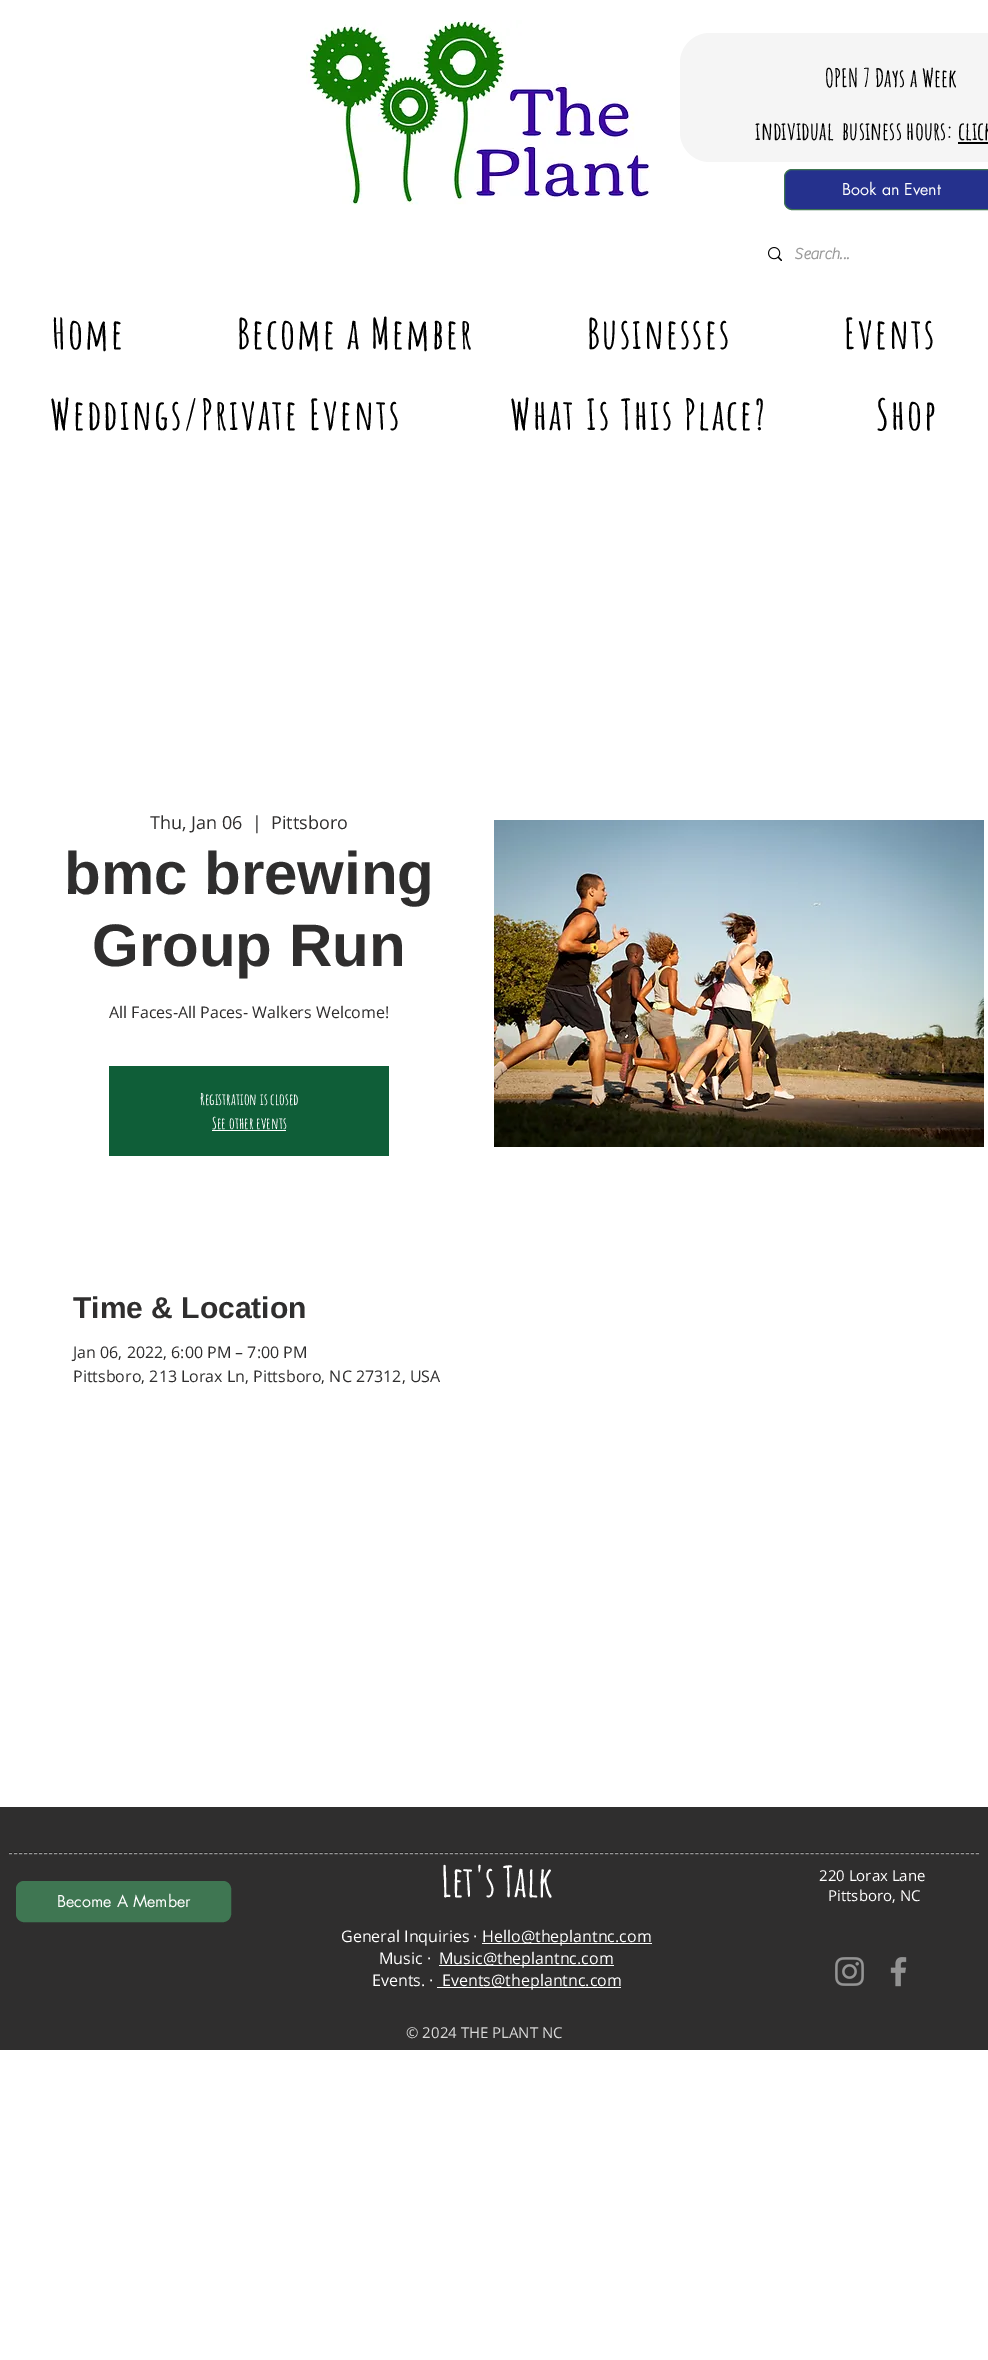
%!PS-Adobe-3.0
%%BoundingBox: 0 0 988 2360
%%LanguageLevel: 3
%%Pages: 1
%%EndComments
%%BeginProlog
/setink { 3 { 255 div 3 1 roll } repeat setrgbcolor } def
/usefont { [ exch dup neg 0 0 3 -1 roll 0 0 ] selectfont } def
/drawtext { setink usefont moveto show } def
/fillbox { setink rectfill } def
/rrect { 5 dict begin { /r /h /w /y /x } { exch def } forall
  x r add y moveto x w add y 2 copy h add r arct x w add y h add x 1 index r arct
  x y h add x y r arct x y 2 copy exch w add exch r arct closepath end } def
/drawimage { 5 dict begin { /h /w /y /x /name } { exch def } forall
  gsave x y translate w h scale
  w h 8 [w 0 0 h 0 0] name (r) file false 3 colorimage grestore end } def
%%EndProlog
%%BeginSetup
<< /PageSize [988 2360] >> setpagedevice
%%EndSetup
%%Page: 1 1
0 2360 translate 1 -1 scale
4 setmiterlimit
0 0 988 2360 255 255 255 fillbox
(assets/img1.rgb) 306 20 344 185 drawimage
245 245 245 setink
680 33 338 129 30 rrect fill
(OPEN 7 Days a Week) 825 87 /AmaticSC-Bold 25 0 0 0 drawtext
(individual  business hours: click) 755 140 /AmaticSC-Bold 25 0 0 0 drawtext
958 142 30 2 0 0 0 fillbox
37 49 141 setink
784.5 169.5 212 40 7.5 rrect gsave fill grestore
63 118 82 setink
stroke
(Book an Event) 842 195 /futura-Regular 16 255 255 255 drawtext
(assets/img2.rgb) 768 247 14 14 drawimage
(Search...) 794 259 /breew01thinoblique-Bold 16 153 153 153 drawtext
/AmaticSC-Bold 42 usefont
0 0 0 setink
52 349 moveto 2.1 0 (Home) ashow
237 349 moveto 2.1 0 (Become a Member) ashow
587 349 moveto 2.1 0 (Businesses) ashow
844 349 moveto 2.1 0 (Events) ashow
50 430 moveto 2.1 0 (Weddings/Private Events) ashow
510 430 moveto 2.1 0 (What Is This Place?) ashow
876 430 moveto 2.1 0 (Shop) ashow
(Thu, Jan 06) 150 829 /OpenSans-Regular 18 47 46 46 drawtext
(|) 252 829 /OpenSans-Regular 18 47 46 46 drawtext
(Pittsboro) 271 829 /OpenSans-Regular 18 47 46 46 drawtext
(bmc brewing) 64 894 /LiberationSans-Bold 60 47 46 46 drawtext
(Group Run) 92 966 /LiberationSans-Bold 60 47 46 46 drawtext
(All Faces-All Paces- Walkers Welcome!) 109 1018 /OpenSans-Regular 16 47 46 46 drawtext
109 1066 280 90 15 94 56 fillbox
(Registration is closed) 200 1105 /AmaticSC-Bold 16 255 255 255 drawtext
(See other events) 212 1129 /AmaticSC-Bold 16 255 255 255 drawtext
212 1130 74 1 255 255 255 fillbox
(assets/img3.rgb) 494 820 490 327 drawimage
(Time & Location) 73 1318 /LiberationSans-Bold 30 47 46 46 drawtext
(Jan 06, 2022, 6:00 PM – 7:00 PM) 73 1358 /OpenSans-Regular 16 47 46 46 drawtext
(Pittsboro, 213 Lorax Ln, Pittsboro, NC 27312, USA) 73 1382 /OpenSans-Regular 16 47 46 46 drawtext
0 1807 988 243 47 46 46 fillbox
31 30 30 setink
[3 2.01] 0 setdash
9 1852.5 moveto 979 1852.5 lineto stroke
151 151 151 setink
9 1853.5 moveto 979 1853.5 lineto stroke
(Let's Talk) 441 1897 /AmaticSC-Bold 42 255 255 255 drawtext
63 118 82 setink
16.5 1881.5 214 40 7.5 rrect gsave fill grestore
[] 0 setdash
stroke
(Become A Member) 57 1907 /futura-Regular 16 255 255 255 drawtext
(220 Lorax Lane) 819 1881 /OpenSans-Regular 15 255 255 255 drawtext
(Pittsboro, NC) 828 1901 /OpenSans-Regular 15 255 255 255 drawtext
(General Inquiries ·) 341 1942 /OpenSans-Regular 16 255 255 255 drawtext
482 1943 170 1 255 255 255 fillbox
(Hello@theplantnc.com) 482 1942 /OpenSans-Regular 16 255 255 255 drawtext
(Music ·) 379 1964 /OpenSans-Regular 16 255 255 255 drawtext
439 1965 175 1 255 255 255 fillbox
(Music@theplantnc.com) 439 1964 /OpenSans-Regular 16 255 255 255 drawtext
(Events. ·) 372 1986 /OpenSans-Regular 16 255 255 255 drawtext
437 1987 184 1 255 255 255 fillbox
(Events@theplantnc.com) 442 1986 /OpenSans-Regular 16 255 255 255 drawtext
(assets/img4.rgb) 835 1957 29 29 drawimage
(assets/img5.rgb) 890 1957 17 30 drawimage
(© 2024 THE PLANT NC) 406 2038 /OpenSans-Regular 15 217 217 217 drawtext
showpage
%%EOF
